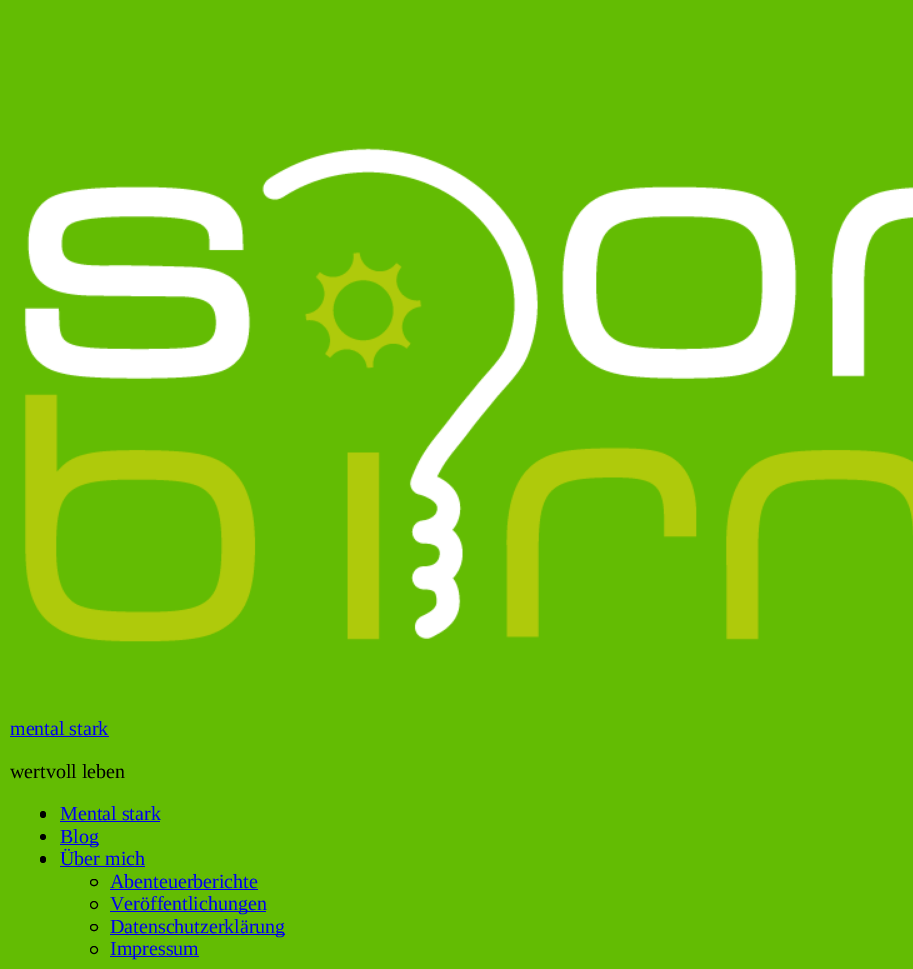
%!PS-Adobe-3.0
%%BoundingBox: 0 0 913 969
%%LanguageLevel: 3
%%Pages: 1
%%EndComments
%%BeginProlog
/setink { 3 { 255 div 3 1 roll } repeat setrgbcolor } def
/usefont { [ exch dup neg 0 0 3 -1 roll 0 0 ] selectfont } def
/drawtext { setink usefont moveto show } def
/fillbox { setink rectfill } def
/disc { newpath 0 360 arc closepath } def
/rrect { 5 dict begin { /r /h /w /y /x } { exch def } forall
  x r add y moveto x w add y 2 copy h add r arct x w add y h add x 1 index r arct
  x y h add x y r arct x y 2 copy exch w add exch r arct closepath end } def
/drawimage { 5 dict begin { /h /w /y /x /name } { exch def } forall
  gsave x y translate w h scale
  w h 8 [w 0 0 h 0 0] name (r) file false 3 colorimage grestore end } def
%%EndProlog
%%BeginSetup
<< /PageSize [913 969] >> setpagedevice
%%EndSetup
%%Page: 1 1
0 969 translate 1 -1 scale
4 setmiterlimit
0 0 913 969 99 188 3 fillbox
(assets/img1.rgb) 24 148 889 494 drawimage
(mental stark) 10 735 /LiberationSerif-Regular 20 0 0 238 drawtext
10 736 99 1 0 0 238 fillbox
(wertvoll leben) 10 778 /LiberationSerif-Regular 20 0 0 0 drawtext
40 811 6 7 3 rrect fill
(Mental stark) 60 820 /LiberationSerif-Regular 20 0 0 238 drawtext
60 821 100 1 0 0 238 fillbox
0 0 0 setink
43 837 3 disc fill
60 844 39 1 0 0 238 fillbox
(Blog) 60 843 /LiberationSerif-Regular 20 0 0 238 drawtext
0 0 0 setink
40 856 6 7 3 rrect fill
(Über mich) 60 865 /LiberationSerif-Regular 20 0 0 238 drawtext
60 866 85 1 0 0 238 fillbox
0 0 0 setink
90.5 879.5 7 6 3 rrect stroke
(Abenteuerberichte) 110 888 /LiberationSerif-Regular 20 0 0 238 drawtext
110 889 148 1 0 0 238 fillbox
0 0 0 setink
94 905 3.5 disc stroke
110 911 156 1 0 0 238 fillbox
(Veröffentlichungen) 110 910 /LiberationSerif-Regular 20 0 0 238 drawtext
0 0 0 setink
90.5 924.5 7 6 3 rrect stroke
110 934 175 1 0 0 238 fillbox
(Datenschutzerklärung) 110 933 /LiberationSerif-Regular 20 0 0 238 drawtext
0 0 0 setink
94 950 3.5 disc stroke
110 956 89 1 0 0 238 fillbox
(Impressum) 110 955 /LiberationSerif-Regular 20 0 0 238 drawtext
showpage
%%EOF
